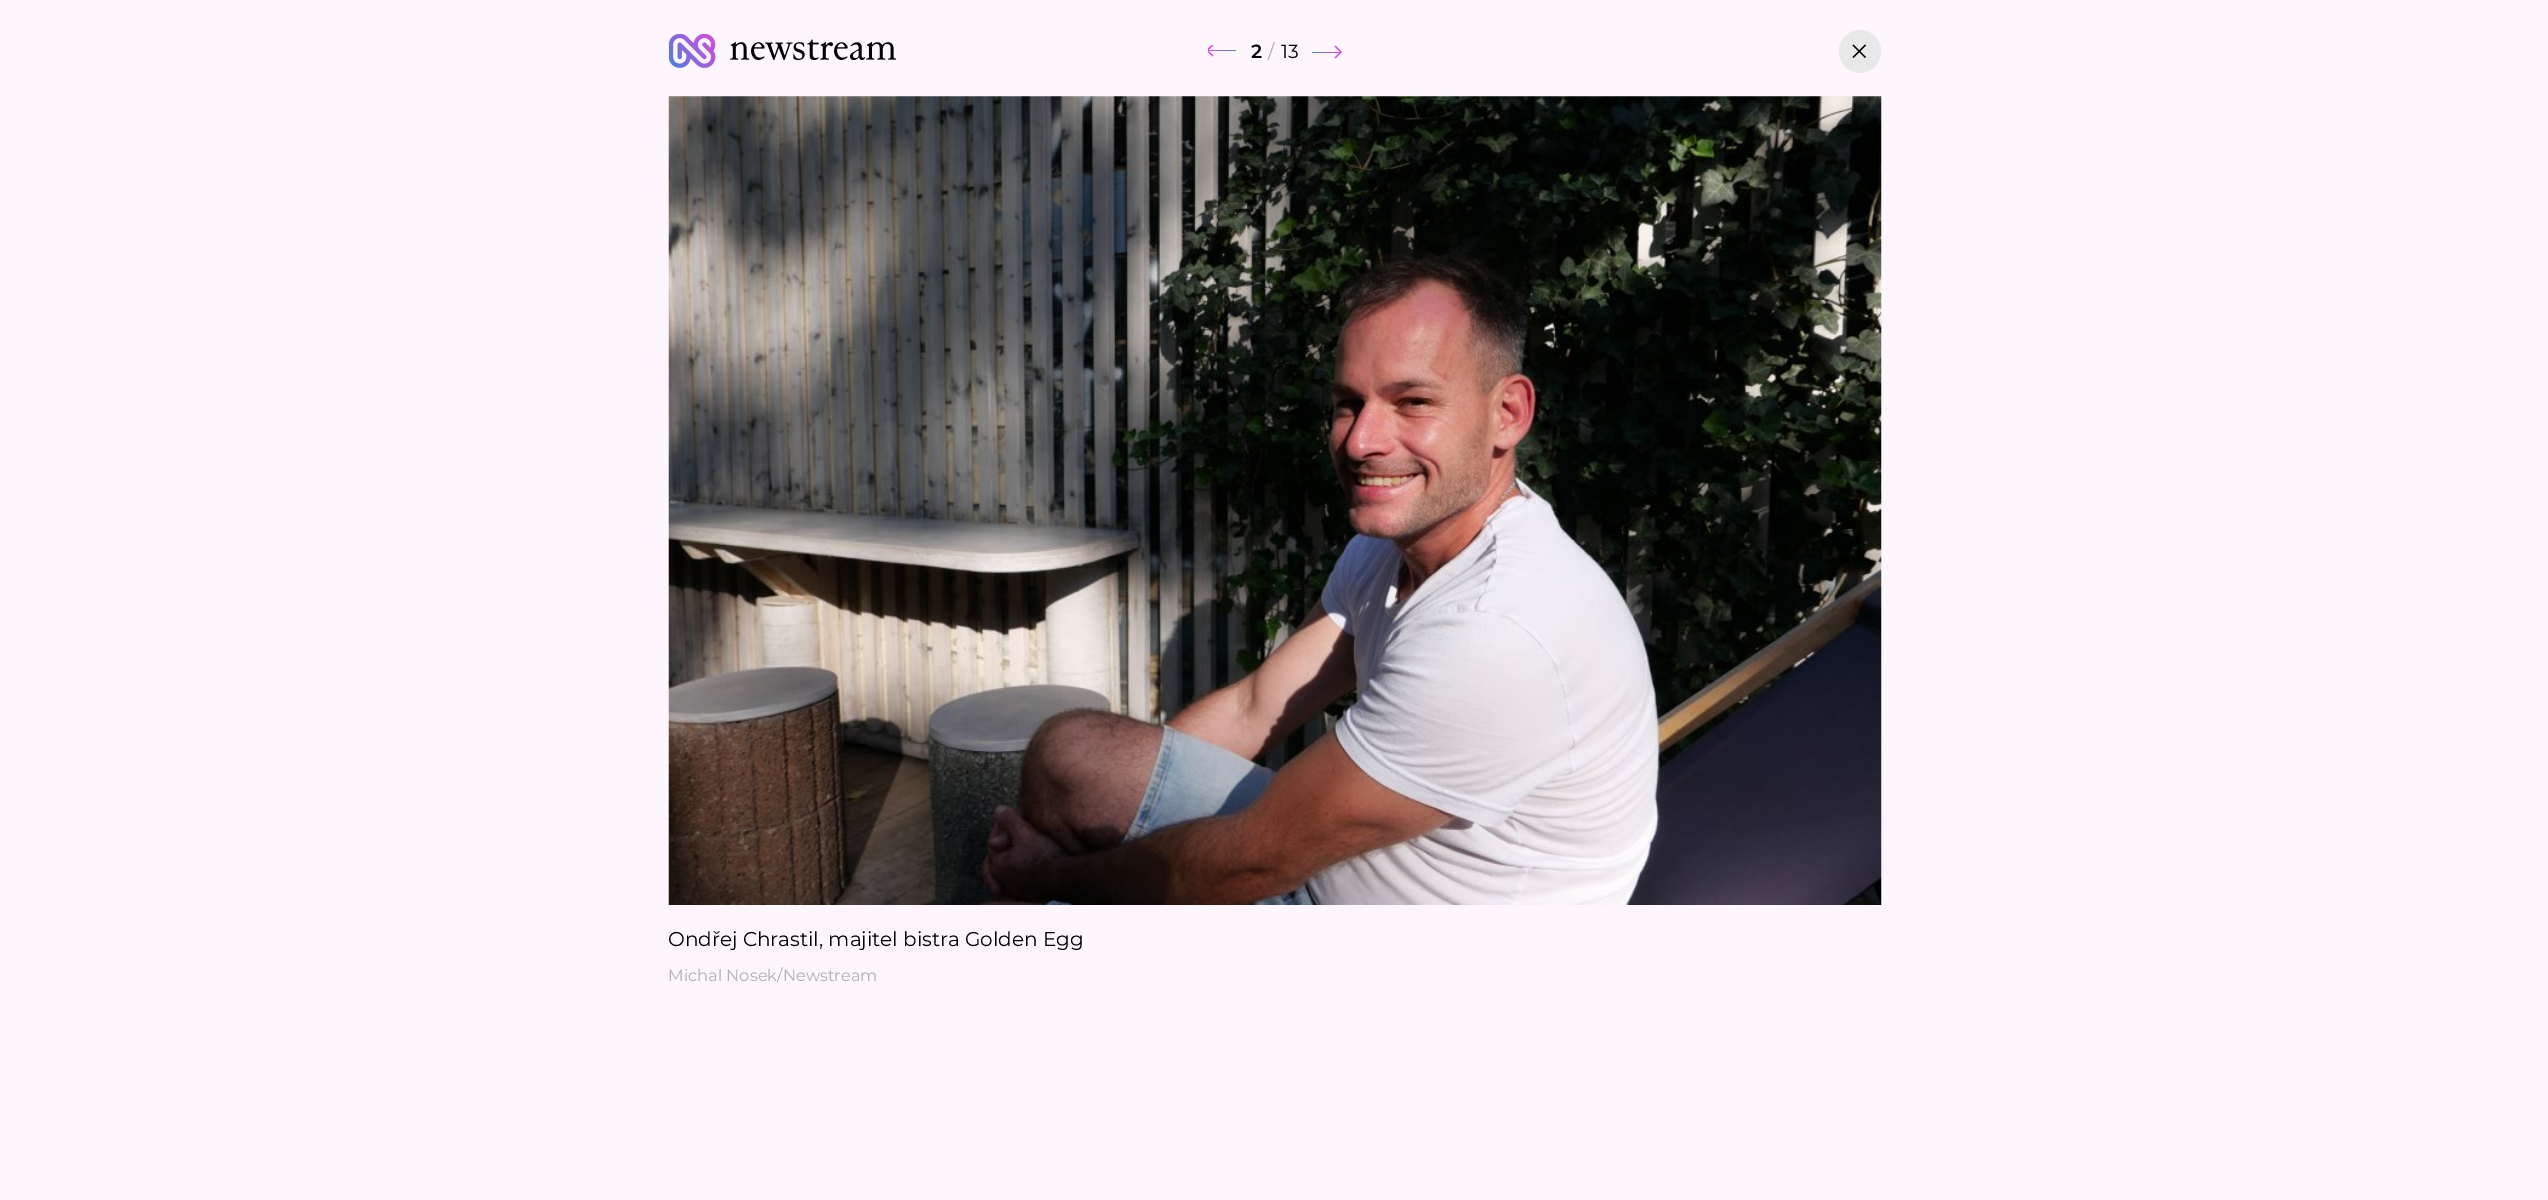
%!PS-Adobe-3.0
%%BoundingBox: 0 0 2548 1200
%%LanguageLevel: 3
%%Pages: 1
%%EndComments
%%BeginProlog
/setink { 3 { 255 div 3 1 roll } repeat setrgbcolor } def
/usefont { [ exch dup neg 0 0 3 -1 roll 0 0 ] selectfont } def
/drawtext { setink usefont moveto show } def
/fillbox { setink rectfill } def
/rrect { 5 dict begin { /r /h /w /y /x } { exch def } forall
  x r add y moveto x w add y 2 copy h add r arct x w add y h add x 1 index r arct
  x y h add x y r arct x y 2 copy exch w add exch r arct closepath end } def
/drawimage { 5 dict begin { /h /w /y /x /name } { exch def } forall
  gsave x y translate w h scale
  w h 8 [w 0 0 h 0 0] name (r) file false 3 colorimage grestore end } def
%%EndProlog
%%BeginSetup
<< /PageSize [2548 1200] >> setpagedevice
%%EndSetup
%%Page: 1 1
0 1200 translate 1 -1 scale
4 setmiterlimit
0 0 2548 1200 253 246 253 fillbox
(assets/img1.rgb) 669 34 227 34 drawimage
gsave 1208 50 moveto 1236 50 lineto 1236 51 lineto 1208 51 lineto closepath clip newpath
<< /ShadingType 2 /ColorSpace /DeviceRGB /Coords [1236 50 1207 50] /Extend [true true] /Function << /FunctionType 2 /Domain [0 1] /C0 [0.298 0.498 0.89] /C1 [0.851 0.29 0.867] /N 1 >> >> shfill grestore
gsave
1208 45 30 14 rectclip
217 74 221 setink
1.2 setlinewidth
1213 56 moveto 1207 50.5 lineto 1213 44.5 lineto stroke
grestore
(2) 1251 58 /Montserrat-Thin 19 0 0 0 drawtext
(/) 1268 58 /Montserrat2-Thin 19 177 177 177 drawtext
(13) 1281 58 /Montserrat2-Thin 19 0 0 0 drawtext
gsave 1312 52 moveto 1341 52 lineto 1341 53 lineto 1312 53 lineto closepath clip newpath
<< /ShadingType 2 /ColorSpace /DeviceRGB /Coords [1312 53 1340 53] /Extend [true true] /Function << /FunctionType 2 /Domain [0 1] /C0 [0.298 0.498 0.89] /C1 [0.851 0.29 0.867] /N 1 >> >> shfill grestore
217 74 221 setink
1.2 setlinewidth
1335 46 moveto 1341 52 lineto 1335 58 lineto stroke
232 232 232 setink
1839 30 42 43 21 rrect fill
0 0 0 setink
1865 44.5 moveto 1866 45.5 lineto 1853.5 58 lineto 1852.5 57 lineto closepath fill
1852.5 45.5 moveto 1853.5 44.5 lineto 1866 57 lineto 1865 58 lineto closepath fill
(assets/img2.rgb) 668 96 1214 809 drawimage
(Ondřej Chrastil, majitel bistra Golden Egg) 668 946 /Montserrat2-Thin 20 0 0 0 drawtext
(Michal Nosek/Newstream) 668 981 /Montserrat2-Thin 16.25 177 177 177 drawtext
showpage
%%EOF
